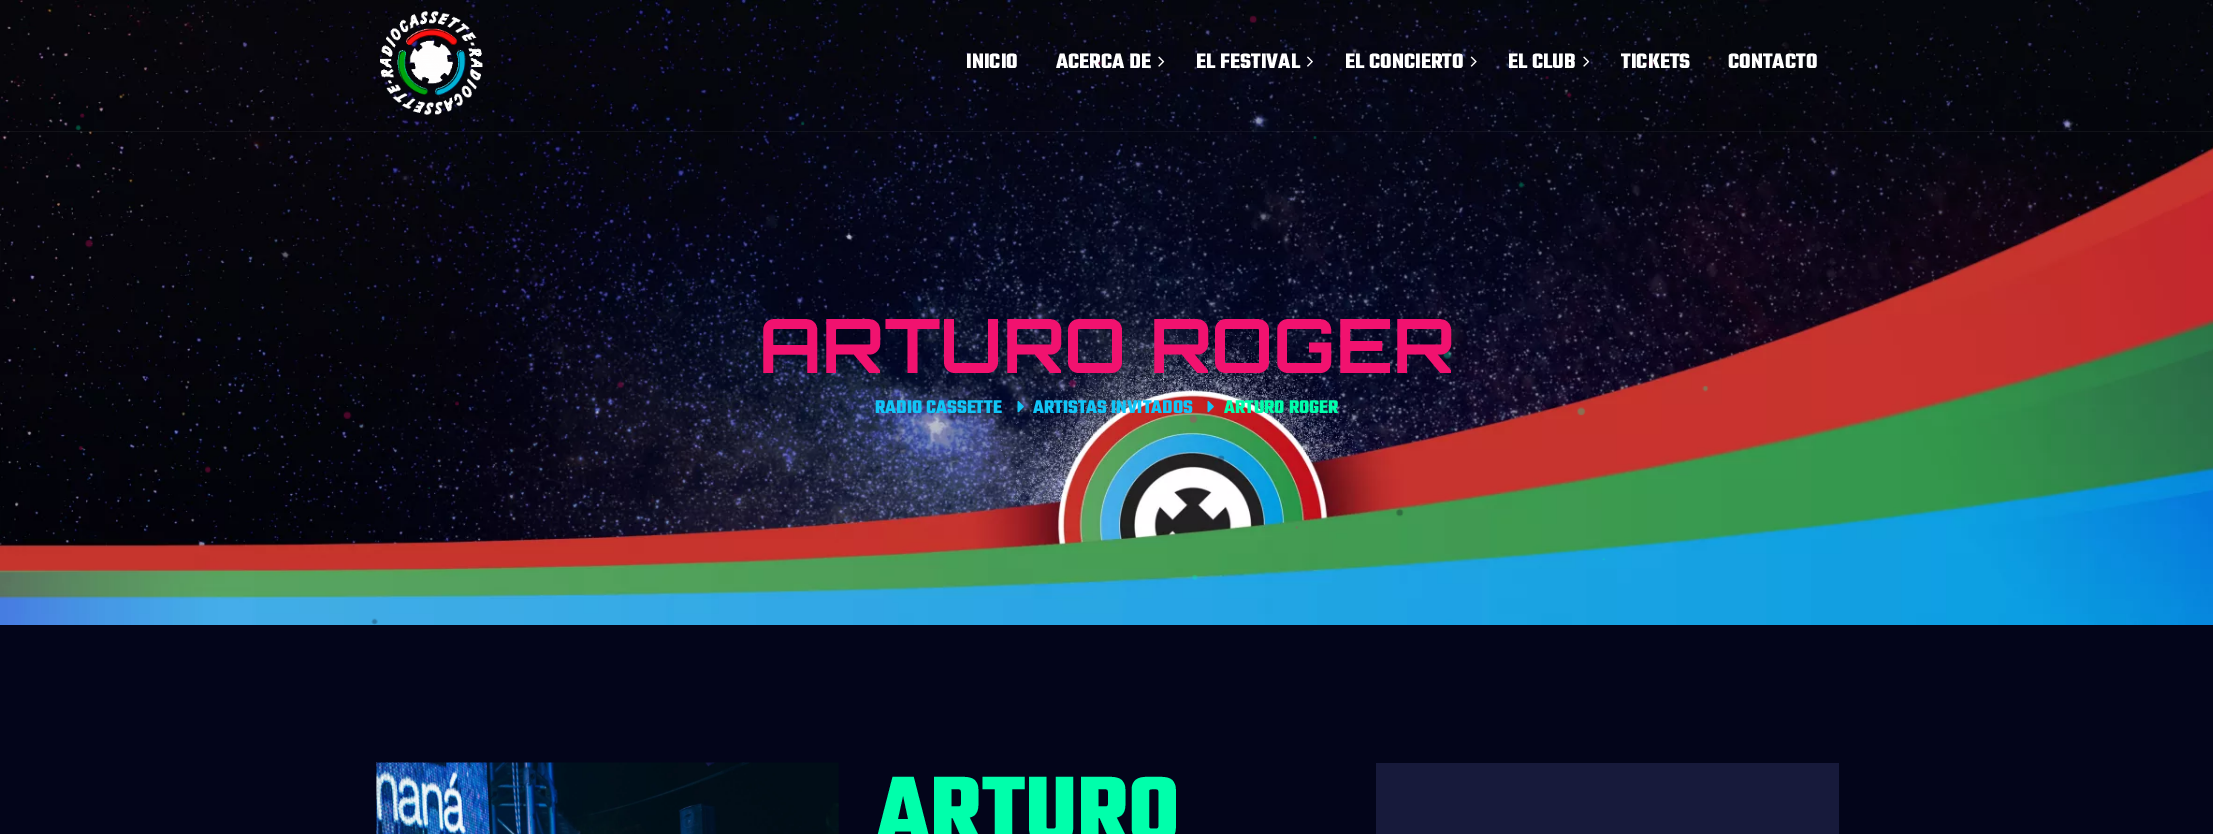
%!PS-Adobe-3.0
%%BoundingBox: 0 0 2213 834
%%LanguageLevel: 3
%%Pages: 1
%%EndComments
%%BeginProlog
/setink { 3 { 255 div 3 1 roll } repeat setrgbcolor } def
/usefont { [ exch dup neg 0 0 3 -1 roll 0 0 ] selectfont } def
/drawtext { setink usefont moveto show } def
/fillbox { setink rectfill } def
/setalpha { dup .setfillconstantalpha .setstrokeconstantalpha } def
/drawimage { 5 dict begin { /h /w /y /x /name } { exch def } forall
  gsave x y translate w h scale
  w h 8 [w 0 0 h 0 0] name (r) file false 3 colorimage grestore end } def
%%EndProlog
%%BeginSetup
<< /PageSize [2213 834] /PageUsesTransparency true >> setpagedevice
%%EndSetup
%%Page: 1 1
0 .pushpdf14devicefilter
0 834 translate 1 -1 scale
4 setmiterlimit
0 0 2213 834 3 5 26 fillbox
(assets/img6.rgb) 0 0 2213 625 drawimage
(assets/img7.rgb) 75 15 1705 610 drawimage
0.05 setalpha
1 131 2212 1 255 255 255 fillbox
1 setalpha
(assets/img1.rgb) 380 11 103 104 drawimage
(INICIO) 966 68 /Teko-Light 22.5 255 255 255 drawtext
(ACERCA DE) 1056 68 /Teko-Light 22.5 255 255 255 drawtext
(assets/img2.rgb) 1158 56 7 11 drawimage
(EL FESTIVAL) 1196 68 /Teko-Light 22.5 255 255 255 drawtext
(assets/img3.rgb) 1307 56 6 11 drawimage
(EL CONCIERTO) 1345 68 /Teko-Light 22.5 255 255 255 drawtext
(assets/img4.rgb) 1470 56 7 11 drawimage
(EL CLUB) 1508 68 /Teko-Light 22.5 255 255 255 drawtext
(assets/img5.rgb) 1583 56 7 11 drawimage
(TICKETS) 1621 68 /Teko-Light 22.5 255 255 255 drawtext
(CONTACTO) 1728 68 /Teko-Light 22.5 255 255 255 drawtext
(ARTURO ROGER) 759 373 /Orbitron-Bold 75 241 18 111 drawtext
(RADIO CASSETTE) 875 413 /Teko-Light 20 17 197 247 drawtext
(assets/img8.rgb) 1017 400 7 13 drawimage
(ARTISTAS INVITADOS) 1033 413 /Teko-Light 20 17 197 247 drawtext
(assets/img9.rgb) 1207 400 7 13 drawimage
(ARTURO ROGER) 1224 413 /Teko-Light 20 0 255 171 drawtext
(assets/img10.rgb) 376 762 463 72 drawimage
(ARTURO) 876 841 /Teko-Light 100 0 255 171 drawtext
1376 763 463 71 23 26 59 fillbox
.poppdf14devicefilter showpage
%%EOF
